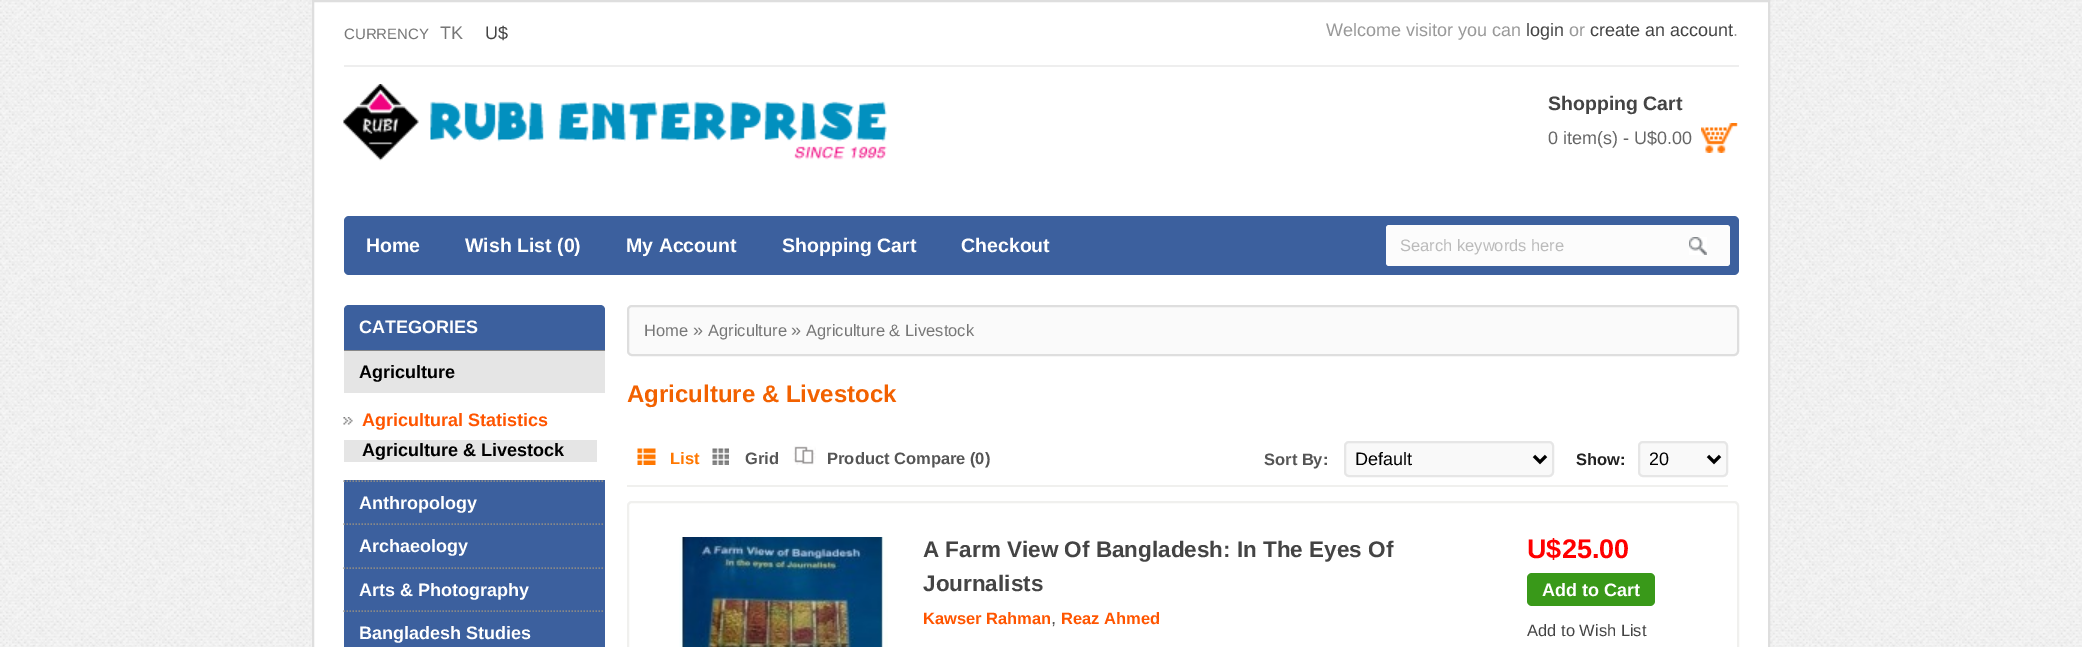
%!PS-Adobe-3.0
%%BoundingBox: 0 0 2082 647
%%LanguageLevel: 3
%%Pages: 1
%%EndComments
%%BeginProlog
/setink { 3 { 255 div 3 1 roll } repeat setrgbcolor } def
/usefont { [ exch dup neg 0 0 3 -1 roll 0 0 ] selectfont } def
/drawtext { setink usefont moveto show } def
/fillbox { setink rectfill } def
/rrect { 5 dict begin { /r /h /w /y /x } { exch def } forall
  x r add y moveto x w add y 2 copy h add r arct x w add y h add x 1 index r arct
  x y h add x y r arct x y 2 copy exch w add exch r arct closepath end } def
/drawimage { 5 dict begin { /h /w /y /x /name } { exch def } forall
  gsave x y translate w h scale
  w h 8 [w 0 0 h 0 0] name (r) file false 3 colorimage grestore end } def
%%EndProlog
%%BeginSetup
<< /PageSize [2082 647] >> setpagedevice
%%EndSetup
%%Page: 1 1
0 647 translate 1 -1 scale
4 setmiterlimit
0 0 2082 647 255 255 255 fillbox
(assets/img1.rgb) 0 0 2082 647 drawimage
313 1 moveto 1769 1 lineto 1769 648 lineto 313 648 lineto closepath gsave fill grestore
222 222 222 setink
2 setlinewidth
stroke
344 65 1395 2 238 238 238 fillbox
(CURRENCY) 344 39 /LiberationSans-Regular 15 119 119 119 drawtext
(TK) 440 39 /LiberationSans-Regular 18 119 119 119 drawtext
(U$) 485 39 /LiberationSans-Regular 18 68 68 68 drawtext
(Welcome visitor you can) 1326 36 /LiberationSans-Regular 18 153 153 153 drawtext
(login) 1526 36 /LiberationSans-Regular 18 68 68 68 drawtext
(or) 1569 36 /LiberationSans-Regular 18 153 153 153 drawtext
(create an account) 1590 36 /LiberationSans-Regular 18 68 68 68 drawtext
(.) 1733 36 /LiberationSans-Regular 18 153 153 153 drawtext
(assets/img2.rgb) 343 84 544 77 drawimage
(Shopping Cart) 1548 110 /LiberationSans-Bold 19.5 68 68 68 drawtext
(assets/img3.rgb) 1701 123 37 30 drawimage
(0 item\(s\) - U$0.00) 1548 144 /LiberationSans-Regular 18 102 102 102 drawtext
60 96 158 setink
344 216 1395 59 5 rrect fill
252 252 252 setink
1386 225 344 41 3 rrect fill
(Search keywords here) 1400 251 /LiberationSans-Regular 16.5 187 187 187 drawtext
(assets/img4.rgb) 1689 237 18 18 drawimage
(Home) 366 252 /LiberationSans-Bold 19.5 255 255 255 drawtext
(Wish List \(0\)) 465 252 /LiberationSans-Bold 19.5 255 255 255 drawtext
(My Account) 626 252 /LiberationSans-Bold 19.5 255 255 255 drawtext
(Shopping Cart) 782 252 /LiberationSans-Bold 19.5 255 255 255 drawtext
(Checkout) 961 252 /LiberationSans-Bold 19.5 255 255 255 drawtext
60 96 158 setink
349 305 moveto 600 305 lineto 603 305 605 307 605 310 curveto 605 350 lineto 344 350 lineto 344 310 lineto 344 307 346 305 349 305 curveto closepath fill
(CATEGORIES) 359 333 /LiberationSans-Bold 18 255 255 255 drawtext
344 480 261 167 60 96 158 fillbox
344 350 261 1 136 136 136 fillbox
344 351 261 42 229 229 229 fillbox
(Agriculture) 359 378 /LiberationSans-Bold 18 0 0 0 drawtext
(assets/img5.rgb) 343 417 10 8 drawimage
(Agricultural Statistics) 362 426 /LiberationSans-Bold 18 255 85 0 drawtext
344 440 253 22 229 229 229 fillbox
(Agriculture & Livestock) 362 456 /LiberationSans-Bold 18 0 0 0 drawtext
136 136 136 setink
1.5 setlinewidth
[1.5 1.5] 0 setdash
343.5 481 moveto 604.5 481 lineto stroke
(Anthropology) 359 509 /LiberationSans-Bold 18 255 255 255 drawtext
136 136 136 setink
343.5 524 moveto 604.5 524 lineto stroke
(Archaeology) 359 552 /LiberationSans-Bold 18 255 255 255 drawtext
136 136 136 setink
343.5 568 moveto 604.5 568 lineto stroke
(Arts & Photography) 359 596 /LiberationSans-Bold 18 255 255 255 drawtext
136 136 136 setink
343.5 611 moveto 604.5 611 lineto stroke
(Bangladesh Studies) 359 639 /LiberationSans-Bold 18 255 255 255 drawtext
250 250 250 setink
628 306 1110 49 4 rrect gsave fill grestore
222 222 222 setink
2 setlinewidth
[] 0 setdash
stroke
(Home) 644 336 /LiberationSans-Regular 16.5 119 119 119 drawtext
(») 693 336 /LiberationSans-Regular 18 119 119 119 drawtext
(Agriculture) 708 336 /LiberationSans-Regular 16.5 119 119 119 drawtext
(») 791 336 /LiberationSans-Regular 18 119 119 119 drawtext
(Agriculture & Livestock) 806 336 /LiberationSans-Regular 16.5 119 119 119 drawtext
(Agriculture & Livestock) 627 402 /LiberationSans-Bold 24 242 97 0 drawtext
627 485 1101 2 240 240 238 fillbox
(assets/img6.rgb) 637 448 19 17 drawimage
(List) 670 464 /LiberationSans-Bold 16.5 255 119 0 drawtext
(assets/img7.rgb) 712 448 17 17 drawimage
(Grid) 745 464 /LiberationSans-Bold 16.5 85 85 85 drawtext
(assets/img8.rgb) 793 446 23 19 drawimage
(Product Compare \(0\)) 827 464 /LiberationSans-Bold 16.5 85 85 85 drawtext
(Sort By:) 1264 465 /LiberationSans-Bold 16.5 85 85 85 drawtext
249 249 249 setink
1345 442 208 34 4 rrect gsave fill grestore
230 230 230 setink
stroke
0 0 0 setink
3 setlinewidth
1534 456 moveto 1540 462 lineto 1546 456 lineto stroke
(Default) 1355 465 /LiberationSans-Regular 18 0 0 0 drawtext
(Show:) 1576 465 /LiberationSans-Bold 16.5 34 34 34 drawtext
249 249 249 setink
1639 442 88 34 4 rrect gsave fill grestore
230 230 230 setink
2 setlinewidth
stroke
0 0 0 setink
3 setlinewidth
1708 456 moveto 1714 462 lineto 1720 456 lineto stroke
(20) 1649 465 /LiberationSans-Regular 18 0 0 0 drawtext
240 240 238 setink
2 setlinewidth
628 502 1110 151 4 rrect stroke
(assets/img9.rgb) 679 537 209 110 drawimage
(A Farm View Of Bangladesh: In The Eyes Of) 923 557 /LiberationSans-Bold 22.5 68 68 68 drawtext
(Journalists) 923 591 /LiberationSans-Bold 22.5 68 68 68 drawtext
(Kawser Rahman) 923 624 /LiberationSans-Bold 16.5 255 85 0 drawtext
(,) 1051 624 /LiberationSans-Regular 18 85 85 85 drawtext
(Reaz Ahmed) 1061 624 /LiberationSans-Bold 16.5 255 85 0 drawtext
(U$25.00) 1527 558 /LiberationSans-Bold 27 255 0 0 drawtext
57 153 25 setink
1527 573 128 33 5 rrect fill
(Add to Cart) 1542 596 /LiberationSans-Bold 18 255 255 255 drawtext
(Add to Wish List) 1527 636 /LiberationSans-Regular 16.5 68 68 68 drawtext
showpage
%%EOF
